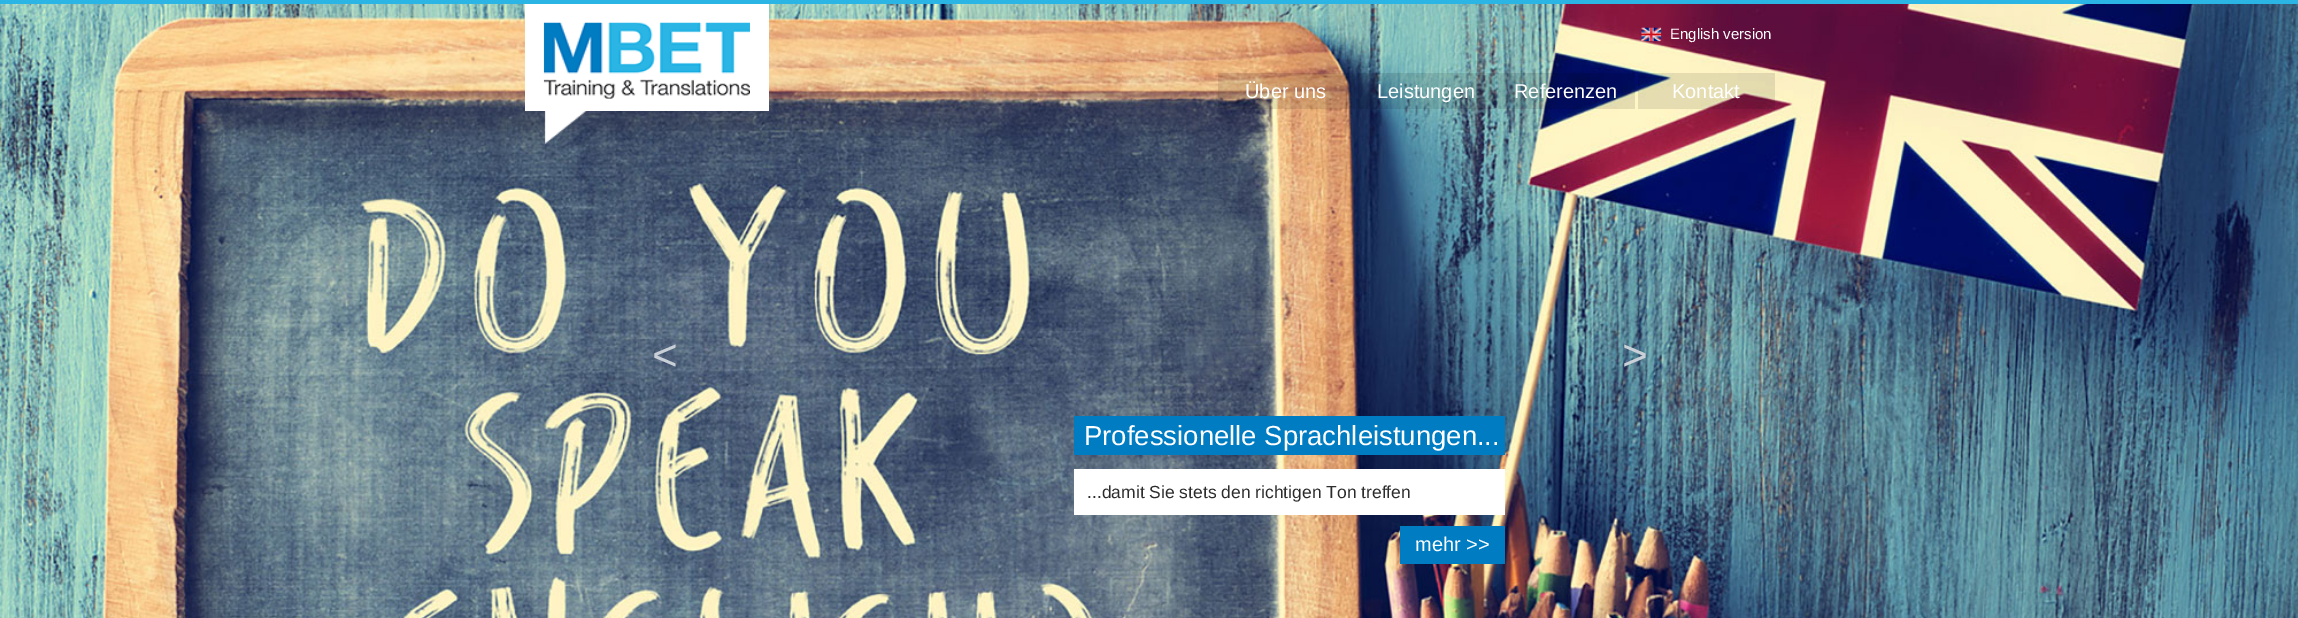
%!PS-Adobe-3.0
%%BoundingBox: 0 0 2298 618
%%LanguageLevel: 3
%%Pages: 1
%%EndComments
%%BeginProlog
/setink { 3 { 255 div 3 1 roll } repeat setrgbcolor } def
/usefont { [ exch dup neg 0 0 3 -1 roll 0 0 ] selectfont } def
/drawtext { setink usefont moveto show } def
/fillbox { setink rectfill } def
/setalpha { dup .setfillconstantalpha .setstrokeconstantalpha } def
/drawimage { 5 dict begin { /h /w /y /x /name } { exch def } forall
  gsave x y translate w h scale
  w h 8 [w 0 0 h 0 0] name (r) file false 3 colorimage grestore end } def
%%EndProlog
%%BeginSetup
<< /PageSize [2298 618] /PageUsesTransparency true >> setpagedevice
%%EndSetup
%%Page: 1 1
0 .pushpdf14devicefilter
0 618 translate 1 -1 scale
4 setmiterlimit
0 0 2298 618 255 255 255 fillbox
0 0 2298 4 42 181 229 fillbox
(assets/img4.rgb) 0 4 2298 614 drawimage
525 4 244 107 255 255 255 fillbox
(assets/img1.rgb) 543 22 207 77 drawimage
(assets/img2.rgb) 544 111 44 33 drawimage
(assets/img3.rgb) 1641 27 21 15 drawimage
(English version) 1670 39 /LiberationSans-Regular 15 255 255 255 drawtext
0.1 setalpha
1218 73 137 36 0 0 0 fillbox
1 setalpha
(Über uns) 1245 98 /LiberationSans-Regular 20 255 255 255 drawtext
0.1 setalpha
1358 73 137 36 0 0 0 fillbox
1 setalpha
(Leistungen) 1377 98 /LiberationSans-Regular 20 255 255 255 drawtext
0.1 setalpha
1498 73 137 36 0 0 0 fillbox
1 setalpha
(Referenzen) 1514 98 /LiberationSans-Regular 20 255 255 255 drawtext
0.1 setalpha
1638 73 137 36 0 0 0 fillbox
1 setalpha
(Kontakt) 1672 98 /LiberationSans-Regular 20 255 255 255 drawtext
(<) 652 370 /LiberationSans-Regular 44 202 208 215 drawtext
(>) 1622 370 /LiberationSans-Regular 44 202 208 215 drawtext
1074 416 431 39 0 124 194 fillbox
(Professionelle Sprachleistungen...) 1084 445 /LiberationSans-Regular 27.5 255 255 255 drawtext
1074 469 431 46 255 255 255 fillbox
(...damit Sie stets den richtigen Ton treffen) 1087 498 /LiberationSans-Regular 17.5 44 44 44 drawtext
1400 526 105 38 0 124 194 fillbox
(mehr >>) 1415 551 /LiberationSans-Regular 20 255 255 255 drawtext
.poppdf14devicefilter showpage
%%EOF
